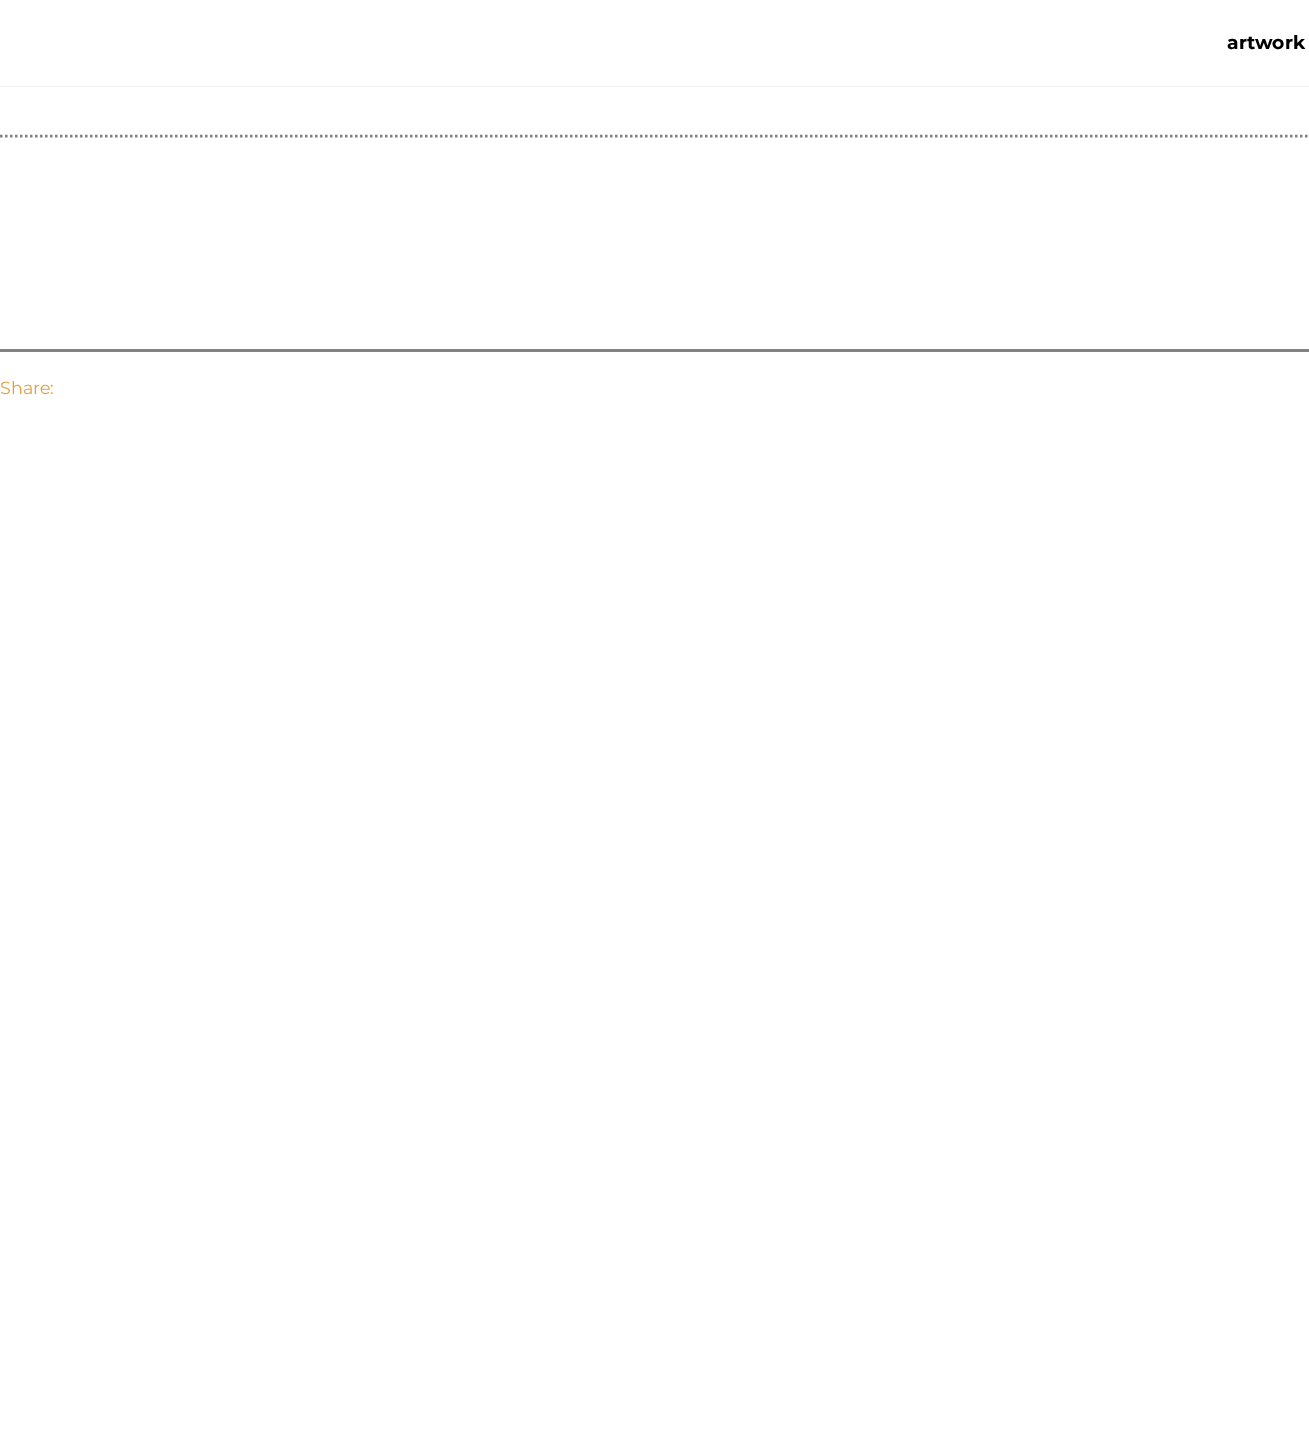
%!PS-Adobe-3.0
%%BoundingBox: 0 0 1309 1431
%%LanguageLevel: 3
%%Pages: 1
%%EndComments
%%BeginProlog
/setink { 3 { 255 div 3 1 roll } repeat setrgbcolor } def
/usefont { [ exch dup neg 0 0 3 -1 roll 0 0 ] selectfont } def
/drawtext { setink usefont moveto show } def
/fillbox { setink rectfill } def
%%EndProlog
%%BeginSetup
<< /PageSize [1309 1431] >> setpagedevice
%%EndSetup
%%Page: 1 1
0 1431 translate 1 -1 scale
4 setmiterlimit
0 0 1309 1431 255 255 255 fillbox
0 86 1309 1 243 243 243 fillbox
(artwork) 1227 49 /Montserrat-Bold 18.75 0 0 0 drawtext
130 130 130 setink
2.5 setlinewidth
[2.5 2.5] 0 setdash
0 136 moveto 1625 136 lineto stroke
0 349 1309 3 130 130 130 fillbox
(Share:) 0 394 /Montserrat-Regular 17.5 227 159 62 drawtext
showpage
%%EOF
